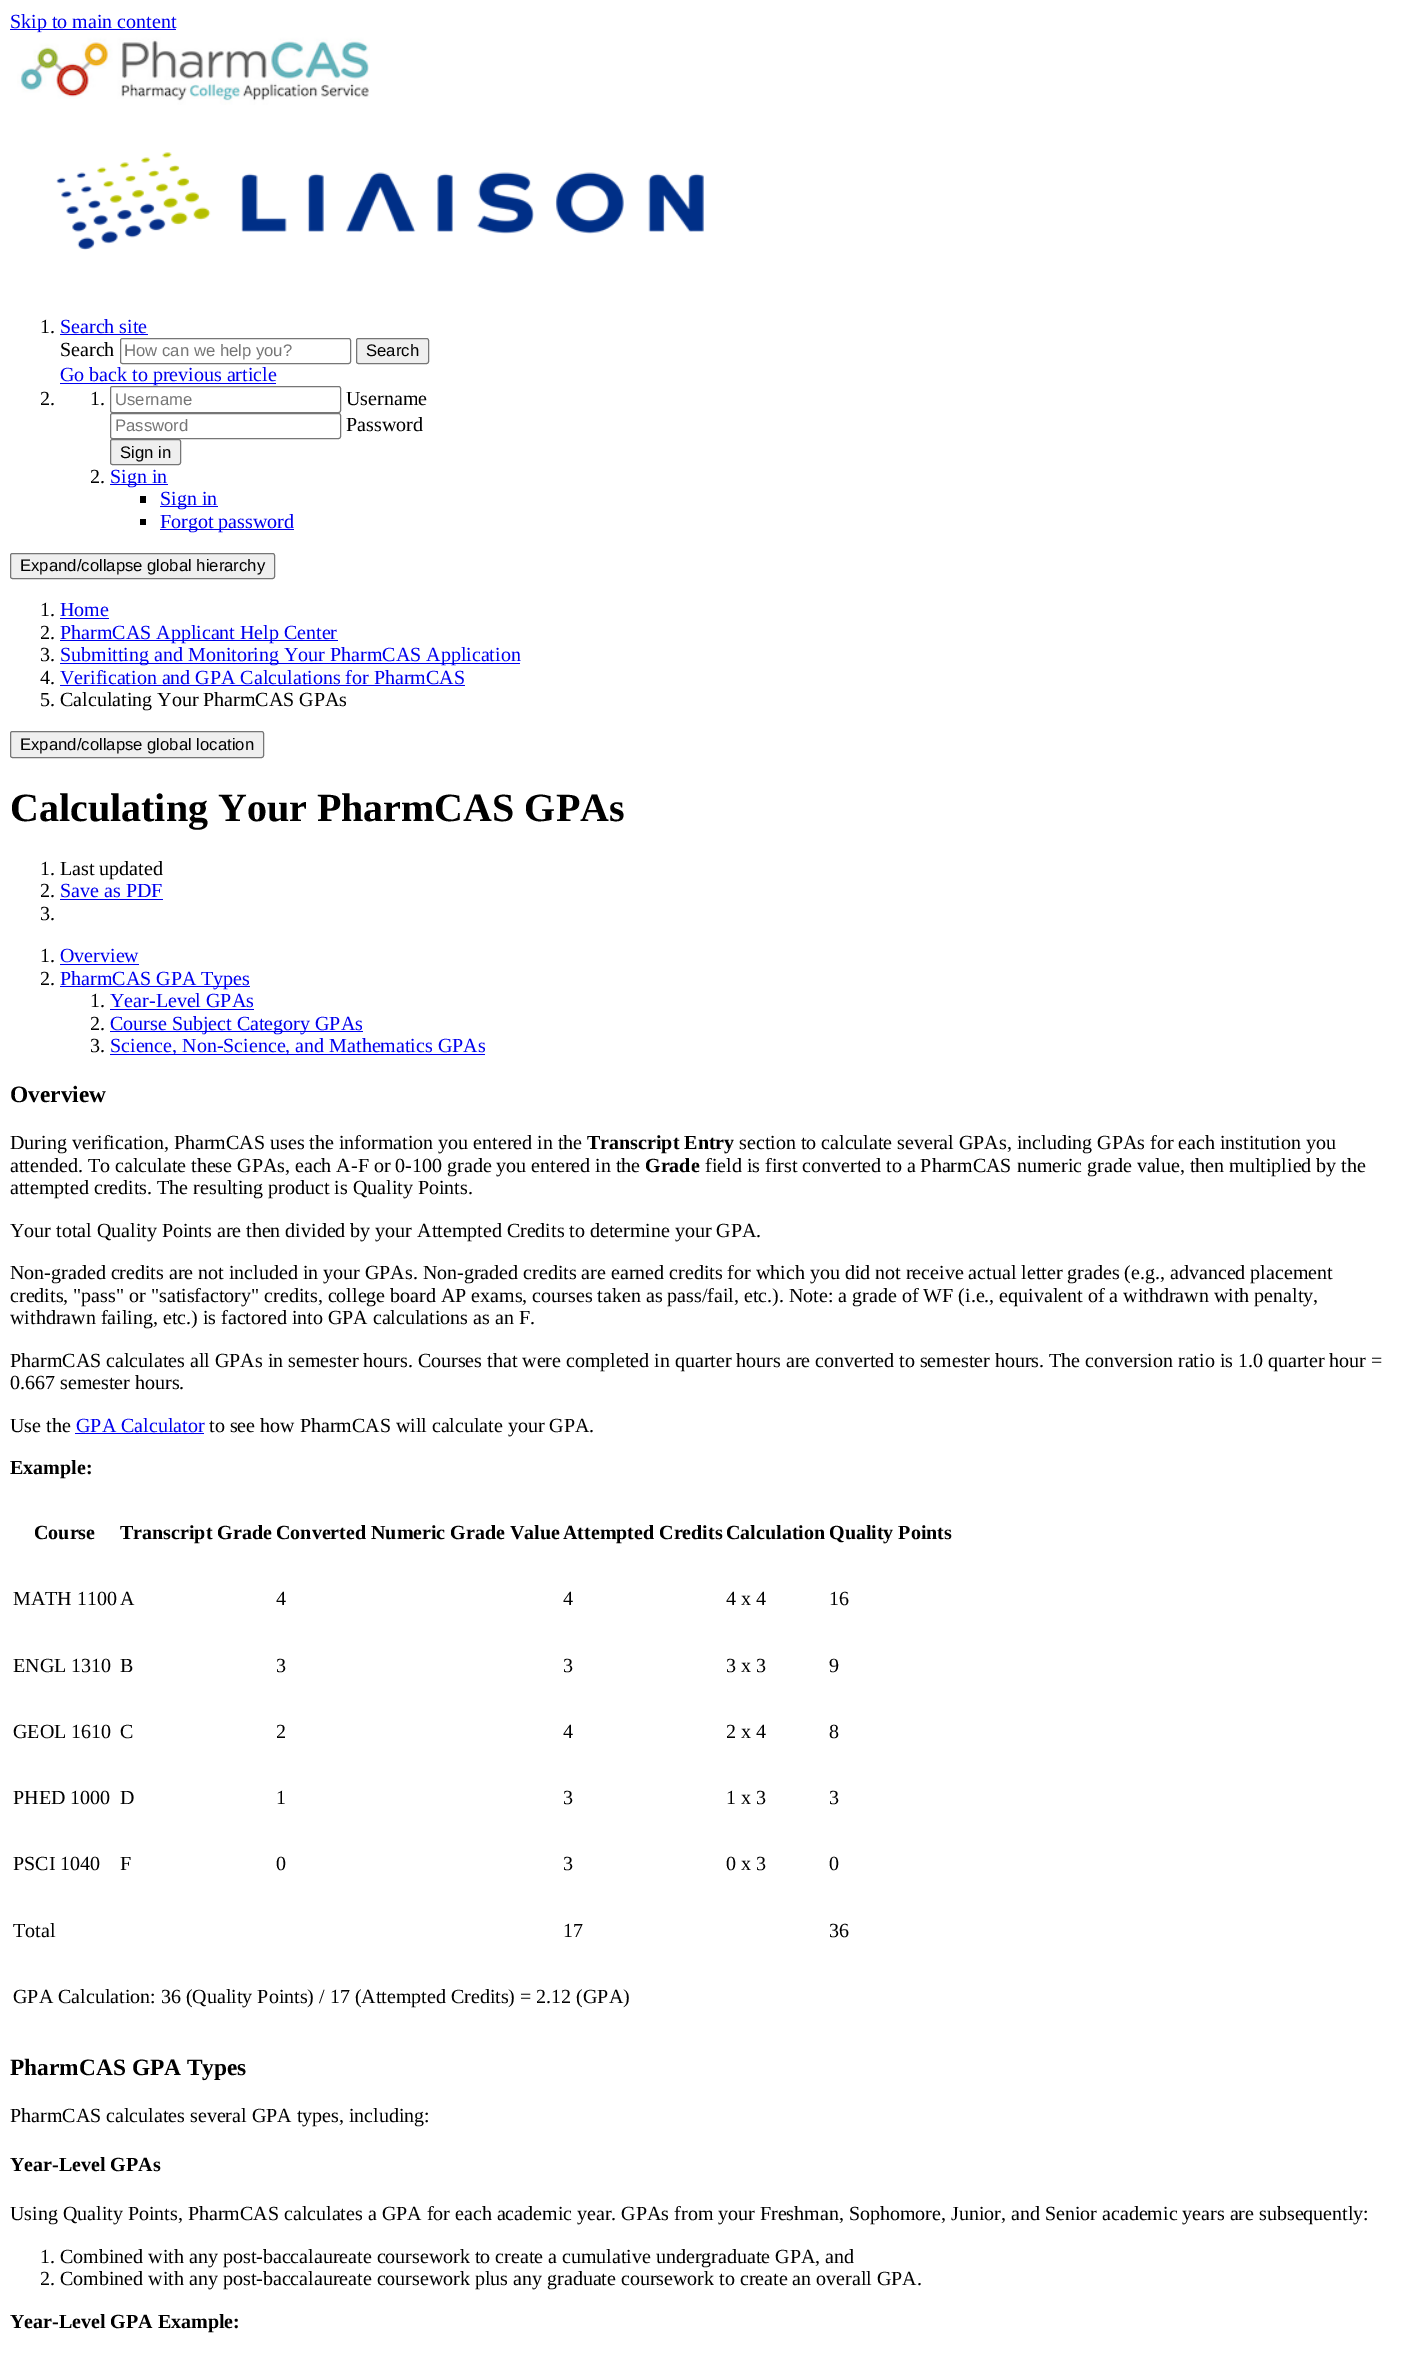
%!PS-Adobe-3.0
%%BoundingBox: 0 0 1402 2354
%%LanguageLevel: 3
%%Pages: 1
%%EndComments
%%BeginProlog
/setink { 3 { 255 div 3 1 roll } repeat setrgbcolor } def
/usefont { [ exch dup neg 0 0 3 -1 roll 0 0 ] selectfont } def
/drawtext { setink usefont moveto show } def
/fillbox { setink rectfill } def
/rrect { 5 dict begin { /r /h /w /y /x } { exch def } forall
  x r add y moveto x w add y 2 copy h add r arct x w add y h add x 1 index r arct
  x y h add x y r arct x y 2 copy exch w add exch r arct closepath end } def
/drawimage { 5 dict begin { /h /w /y /x /name } { exch def } forall
  gsave x y translate w h scale
  w h 8 [w 0 0 h 0 0] name (r) file false 3 colorimage grestore end } def
%%EndProlog
%%BeginSetup
<< /PageSize [1402 2354] >> setpagedevice
%%EndSetup
%%Page: 1 1
0 2354 translate 1 -1 scale
4 setmiterlimit
0 0 1402 2354 255 255 255 fillbox
10 29 166 1 0 0 238 fillbox
(Skip to main content) 10 28 /LiberationSerif-Regular 20 0 0 238 drawtext
(assets/img1.rgb) 17 32 353 73 drawimage
(assets/img2.rgb) 56 152 648 98 drawimage
(1.) 40 333 /LiberationSerif-Regular 20 0 0 0 drawtext
(Search site) 60 333 /LiberationSerif-Regular 20 0 0 238 drawtext
60 334 88 1 0 0 238 fillbox
(Search) 60 356 /LiberationSerif-Regular 20 0 0 0 drawtext
118 118 118 setink
120.5 338.5 230 25 2 rrect stroke
(How can we help you?) 124 356 /LiberationSans-Regular 16.7 117 117 117 drawtext
239 239 239 setink
356.5 338.5 72 25 2 rrect gsave fill grestore
118 118 118 setink
stroke
(Search) 366 356 /LiberationSans-Regular 16.7 0 0 0 drawtext
60 383 216 1 0 0 238 fillbox
(Go back to previous article) 60 381 /LiberationSerif-Regular 20 0 0 238 drawtext
(2.) 40 405 /LiberationSerif-Regular 20 0 0 0 drawtext
(1.) 90 405 /LiberationSerif-Regular 20 0 0 0 drawtext
118 118 118 setink
110.5 386.5 230 26 2 rrect stroke
(Username) 115 405 /LiberationSans-Regular 16.7 117 117 117 drawtext
(Username) 346 405 /LiberationSerif-Regular 20 0 0 0 drawtext
118 118 118 setink
110.5 413.5 230 25 2 rrect stroke
(Password) 115 431 /LiberationSans-Regular 16.7 117 117 117 drawtext
(Password) 346 431 /LiberationSerif-Regular 20 0 0 0 drawtext
239 239 239 setink
110.5 439.5 70 25 2 rrect gsave fill grestore
118 118 118 setink
stroke
(Sign in) 120 458 /LiberationSans-Regular 16.7 0 0 0 drawtext
(2.) 90 483 /LiberationSerif-Regular 20 0 0 0 drawtext
110 484 58 1 0 0 238 fillbox
(Sign in) 110 483 /LiberationSerif-Regular 20 0 0 238 drawtext
140 496 6 7 0 0 0 fillbox
160 506 58 1 0 0 238 fillbox
(Sign in) 160 505 /LiberationSerif-Regular 20 0 0 238 drawtext
140 519 6 6 0 0 0 fillbox
160 529 134 1 0 0 238 fillbox
(Forgot password) 160 528 /LiberationSerif-Regular 20 0 0 238 drawtext
239 239 239 setink
10.5 553.5 264 25 2 rrect gsave fill grestore
118 118 118 setink
stroke
(Expand/collapse global hierarchy) 20 571 /LiberationSans-Regular 16.7 0 0 0 drawtext
(1.) 40 616 /LiberationSerif-Regular 20 0 0 0 drawtext
(Home) 60 616 /LiberationSerif-Regular 20 0 0 238 drawtext
60 618 49 1 0 0 238 fillbox
(2.) 40 639 /LiberationSerif-Regular 20 0 0 0 drawtext
60 640 278 1 0 0 238 fillbox
(PharmCAS Applicant Help Center) 60 639 /LiberationSerif-Regular 20 0 0 238 drawtext
(3.) 40 661 /LiberationSerif-Regular 20 0 0 0 drawtext
60 663 460 1 0 0 238 fillbox
(Submitting and Monitoring Your PharmCAS Application) 60 661 /LiberationSerif-Regular 20 0 0 238 drawtext
(4.) 40 684 /LiberationSerif-Regular 20 0 0 0 drawtext
(Verification and GPA Calculations for PharmCAS) 60 684 /LiberationSerif-Regular 20 0 0 238 drawtext
60 685 405 1 0 0 238 fillbox
(5. Calculating Your PharmCAS GPAs) 40 706 /LiberationSerif-Regular 20 0 0 0 drawtext
239 239 239 setink
10.5 731.5 253 26 2 rrect gsave fill grestore
118 118 118 setink
stroke
(Expand/collapse global location) 20 750 /LiberationSans-Regular 16.7 0 0 0 drawtext
(Calculating Your PharmCAS GPAs) 10 821 /LiberationSerif-Bold 40 0 0 0 drawtext
(1. Last updated) 40 875 /LiberationSerif-Regular 20 0 0 0 drawtext
(2.) 40 897 /LiberationSerif-Regular 20 0 0 0 drawtext
(Save as PDF) 60 897 /LiberationSerif-Regular 20 0 0 238 drawtext
60 899 103 1 0 0 238 fillbox
(3.) 40 920 /LiberationSerif-Regular 20 0 0 0 drawtext
(1.) 40 962 /LiberationSerif-Regular 20 0 0 0 drawtext
(Overview) 60 962 /LiberationSerif-Regular 20 0 0 238 drawtext
60 964 79 1 0 0 238 fillbox
(2.) 40 985 /LiberationSerif-Regular 20 0 0 0 drawtext
60 986 190 1 0 0 238 fillbox
(PharmCAS GPA Types) 60 985 /LiberationSerif-Regular 20 0 0 238 drawtext
(1.) 90 1007 /LiberationSerif-Regular 20 0 0 0 drawtext
(Year-Level GPAs) 110 1007 /LiberationSerif-Regular 20 0 0 238 drawtext
110 1009 144 1 0 0 238 fillbox
(2.) 90 1030 /LiberationSerif-Regular 20 0 0 0 drawtext
110 1031 253 1 0 0 238 fillbox
(Course Subject Category GPAs) 110 1030 /LiberationSerif-Regular 20 0 0 238 drawtext
(3.) 90 1052 /LiberationSerif-Regular 20 0 0 0 drawtext
110 1054 375 1 0 0 238 fillbox
(Science, Non-Science, and Mathematics GPAs) 110 1052 /LiberationSerif-Regular 20 0 0 238 drawtext
(Overview) 10 1102 /LiberationSerif-Bold 23.4 0 0 0 drawtext
(During verification, PharmCAS uses the information you entered in the) 10 1149 /LiberationSerif-Regular 20 0 0 0 drawtext
(Transcript Entry) 587 1149 /LiberationSerif-Bold 20 0 0 0 drawtext
(section to calculate several GPAs, including GPAs for each institution you) 739 1149 /LiberationSerif-Regular 20 0 0 0 drawtext
(attended. To calculate these GPAs, each A-F or 0-100 grade you entered in the) 10 1172 /LiberationSerif-Regular 20 0 0 0 drawtext
(Grade) 645 1172 /LiberationSerif-Bold 20 0 0 0 drawtext
(field is first converted to a PharmCAS numeric grade value, then multiplied by the) 705 1172 /LiberationSerif-Regular 20 0 0 0 drawtext
(attempted credits. The resulting product is Quality Points.) 10 1194 /LiberationSerif-Regular 20 0 0 0 drawtext
(Your total Quality Points are then divided by your Attempted Credits to determine your GPA.) 10 1237 /LiberationSerif-Regular 20 0 0 0 drawtext
(Non-graded credits are not included in your GPAs. Non-graded credits are earned credits for which you did not receive actual letter grades \(e.g., advanced placement) 10 1279 /LiberationSerif-Regular 20 0 0 0 drawtext
(credits, "pass" or "satisfactory" credits, college board AP exams, courses taken as pass/fail, etc.\). Note: a grade of WF \(i.e., equivalent of a withdrawn with penalty,) 10 1302 /LiberationSerif-Regular 20 0 0 0 drawtext
(withdrawn failing, etc.\) is factored into GPA calculations as an F.) 10 1324 /LiberationSerif-Regular 20 0 0 0 drawtext
(PharmCAS calculates all GPAs in semester hours. Courses that were completed in quarter hours are converted to semester hours. The conversion ratio is 1.0 quarter hour =) 10 1367 /LiberationSerif-Regular 20 0 0 0 drawtext
(0.667 semester hours.) 10 1389 /LiberationSerif-Regular 20 0 0 0 drawtext
(Use the) 10 1432 /LiberationSerif-Regular 20 0 0 0 drawtext
(GPA Calculator) 76 1432 /LiberationSerif-Regular 20 0 0 238 drawtext
75 1433 129 1 0 0 238 fillbox
(to see how PharmCAS will calculate your GPA.) 209 1432 /LiberationSerif-Regular 20 0 0 0 drawtext
(Example:) 10 1474 /LiberationSerif-Bold 20 0 0 0 drawtext
(Course) 34 1539 /LiberationSerif-Bold 20 0 0 0 drawtext
(Transcript Grade) 120 1539 /LiberationSerif-Bold 20 0 0 0 drawtext
(Converted Numeric Grade Value) 276 1539 /LiberationSerif-Bold 20 0 0 0 drawtext
(Attempted Credits) 563 1539 /LiberationSerif-Bold 20 0 0 0 drawtext
(Calculation) 726 1539 /LiberationSerif-Bold 20 0 0 0 drawtext
(Quality Points) 829 1539 /LiberationSerif-Bold 20 0 0 0 drawtext
(MATH 1100) 13 1605 /LiberationSerif-Regular 20 0 0 0 drawtext
(A) 120 1605 /LiberationSerif-Regular 20 0 0 0 drawtext
(4) 276 1605 /LiberationSerif-Regular 20 0 0 0 drawtext
(4) 563 1605 /LiberationSerif-Regular 20 0 0 0 drawtext
(4 x 4) 726 1605 /LiberationSerif-Regular 20 0 0 0 drawtext
(16) 829 1605 /LiberationSerif-Regular 20 0 0 0 drawtext
(ENGL 1310) 13 1672 /LiberationSerif-Regular 20 0 0 0 drawtext
(B) 120 1672 /LiberationSerif-Regular 20 0 0 0 drawtext
(3) 276 1672 /LiberationSerif-Regular 20 0 0 0 drawtext
(3) 563 1672 /LiberationSerif-Regular 20 0 0 0 drawtext
(3 x 3) 726 1672 /LiberationSerif-Regular 20 0 0 0 drawtext
(9) 829 1672 /LiberationSerif-Regular 20 0 0 0 drawtext
(GEOL 1610) 13 1738 /LiberationSerif-Regular 20 0 0 0 drawtext
(C) 120 1738 /LiberationSerif-Regular 20 0 0 0 drawtext
(2) 276 1738 /LiberationSerif-Regular 20 0 0 0 drawtext
(4) 563 1738 /LiberationSerif-Regular 20 0 0 0 drawtext
(2 x 4) 726 1738 /LiberationSerif-Regular 20 0 0 0 drawtext
(8) 829 1738 /LiberationSerif-Regular 20 0 0 0 drawtext
(PHED 1000) 13 1804 /LiberationSerif-Regular 20 0 0 0 drawtext
(D) 120 1804 /LiberationSerif-Regular 20 0 0 0 drawtext
(1) 276 1804 /LiberationSerif-Regular 20 0 0 0 drawtext
(3) 563 1804 /LiberationSerif-Regular 20 0 0 0 drawtext
(1 x 3) 726 1804 /LiberationSerif-Regular 20 0 0 0 drawtext
(3) 829 1804 /LiberationSerif-Regular 20 0 0 0 drawtext
(PSCI 1040) 13 1870 /LiberationSerif-Regular 20 0 0 0 drawtext
(F) 120 1870 /LiberationSerif-Regular 20 0 0 0 drawtext
(0) 276 1870 /LiberationSerif-Regular 20 0 0 0 drawtext
(3) 563 1870 /LiberationSerif-Regular 20 0 0 0 drawtext
(0 x 3) 726 1870 /LiberationSerif-Regular 20 0 0 0 drawtext
(0) 829 1870 /LiberationSerif-Regular 20 0 0 0 drawtext
(Total) 13 1937 /LiberationSerif-Regular 20 0 0 0 drawtext
(17) 563 1937 /LiberationSerif-Regular 20 0 0 0 drawtext
(36) 829 1937 /LiberationSerif-Regular 20 0 0 0 drawtext
(GPA Calculation: 36 \(Quality Points\) / 17 \(Attempted Credits\) = 2.12 \(GPA\)) 13 2003 /LiberationSerif-Regular 20 0 0 0 drawtext
(PharmCAS GPA Types) 10 2075 /LiberationSerif-Bold 23.4 0 0 0 drawtext
(PharmCAS calculates several GPA types, including:) 10 2122 /LiberationSerif-Regular 20 0 0 0 drawtext
(Year-Level GPAs) 10 2171 /LiberationSerif-Bold 20 0 0 0 drawtext
(Using Quality Points, PharmCAS calculates a GPA for each academic year. GPAs from your Freshman, Sophomore, Junior, and Senior academic years are subsequently:) 10 2220 /LiberationSerif-Regular 20 0 0 0 drawtext
(1. Combined with any post-baccalaureate coursework to create a cumulative undergraduate GPA, and) 40 2263 /LiberationSerif-Regular 20 0 0 0 drawtext
(2. Combined with any post-baccalaureate coursework plus any graduate coursework to create an overall GPA.) 40 2285 /LiberationSerif-Regular 20 0 0 0 drawtext
(Year-Level GPA Example:) 10 2328 /LiberationSerif-Bold 20 0 0 0 drawtext
showpage
%%EOF
